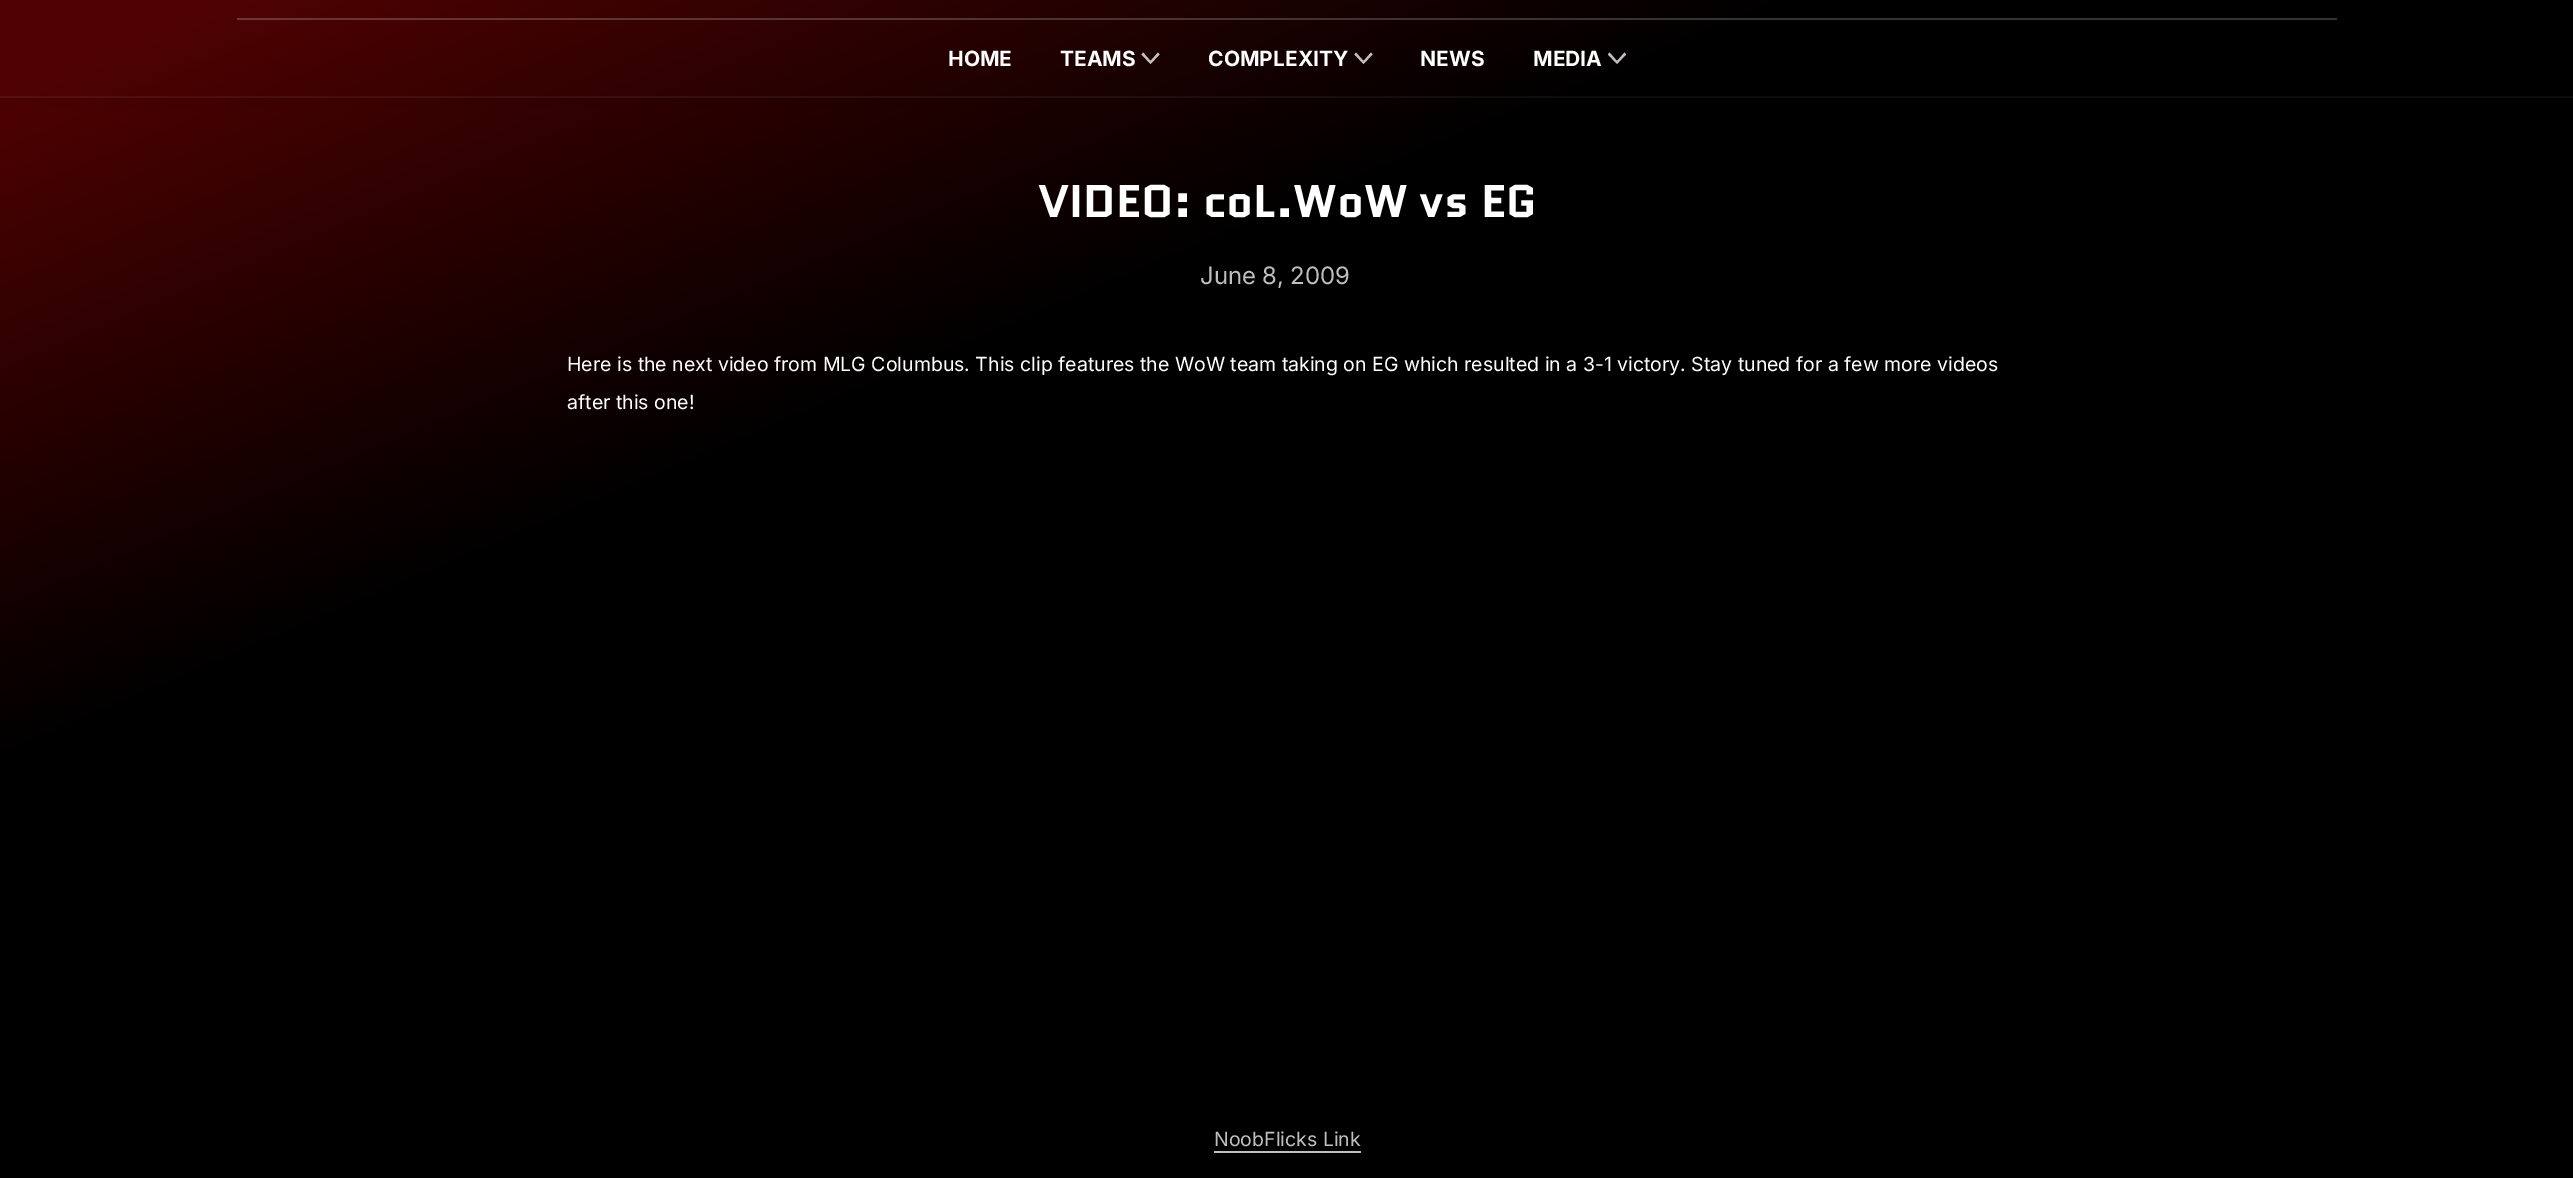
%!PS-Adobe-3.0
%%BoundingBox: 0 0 2573 1178
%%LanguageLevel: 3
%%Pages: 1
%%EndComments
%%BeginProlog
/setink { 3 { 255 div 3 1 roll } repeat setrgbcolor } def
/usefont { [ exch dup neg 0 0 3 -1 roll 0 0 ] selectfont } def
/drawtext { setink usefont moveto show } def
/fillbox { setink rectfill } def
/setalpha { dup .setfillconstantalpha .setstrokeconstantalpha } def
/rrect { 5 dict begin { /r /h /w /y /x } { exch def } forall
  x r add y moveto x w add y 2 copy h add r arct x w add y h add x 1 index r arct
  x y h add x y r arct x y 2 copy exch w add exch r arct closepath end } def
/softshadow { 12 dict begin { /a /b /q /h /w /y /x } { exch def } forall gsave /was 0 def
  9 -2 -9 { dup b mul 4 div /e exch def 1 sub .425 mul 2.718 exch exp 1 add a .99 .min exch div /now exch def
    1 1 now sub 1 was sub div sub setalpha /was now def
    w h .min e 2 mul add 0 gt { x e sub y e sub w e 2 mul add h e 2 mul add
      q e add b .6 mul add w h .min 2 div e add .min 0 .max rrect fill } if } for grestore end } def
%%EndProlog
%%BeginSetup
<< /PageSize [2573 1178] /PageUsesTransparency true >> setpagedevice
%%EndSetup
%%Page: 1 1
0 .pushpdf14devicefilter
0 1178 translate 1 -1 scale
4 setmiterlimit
0 0 2573 1178 255 255 255 fillbox
gsave 0 98 moveto 2573 98 lineto 2573 1178 lineto 0 1178 lineto closepath clip newpath
<< /ShadingType 2 /ColorSpace /DeviceRGB /Coords [1696 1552 878 -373] /Extend [true true] /Function << /FunctionType 3 /Domain [0 1] /Functions [<< /FunctionType 2 /Domain [0 1] /C0 [0 0 0] /C1 [0 0 0] /N 1 >> << /FunctionType 2 /Domain [0 1] /C0 [0 0 0] /C1 [0.314 0.008 0.008] /N 1 >> << /FunctionType 2 /Domain [0 1] /C0 [0.314 0.008 0.008] /C1 [0.314 0.008 0.008] /N 1 >>] /Bounds [0.66 0.96] /Encode [0 1 0 1 0 1] >> >> shfill grestore
0 0 0 setink
0 -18 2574 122 0 6 0.1 softshadow
gsave 0 0 moveto 2573 0 lineto 2573 98 lineto 0 98 lineto closepath clip newpath
<< /ShadingType 2 /ColorSpace /DeviceRGB /Coords [1696 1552 878 -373] /Extend [true true] /Function << /FunctionType 3 /Domain [0 1] /Functions [<< /FunctionType 2 /Domain [0 1] /C0 [0 0 0] /C1 [0 0 0] /N 1 >> << /FunctionType 2 /Domain [0 1] /C0 [0 0 0] /C1 [0.314 0.008 0.008] /N 1 >> << /FunctionType 2 /Domain [0 1] /C0 [0.314 0.008 0.008] /C1 [0.314 0.008 0.008] /N 1 >>] /Bounds [0.66 0.96] /Encode [0 1 0 1 0 1] >> >> shfill grestore
gsave 237 18 moveto 2337 18 lineto 2337 20 lineto 237 20 lineto closepath clip newpath
<< /ShadingType 2 /ColorSpace /DeviceRGB /Coords [1696 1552 878 -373] /Extend [true true] /Function << /FunctionType 3 /Domain [0 1] /Functions [<< /FunctionType 2 /Domain [0 1] /C0 [0.2 0.2 0.2] /C1 [0.2 0.2 0.2] /N 1 >> << /FunctionType 2 /Domain [0 1] /C0 [0.2 0.2 0.2] /C1 [0.451 0.208 0.208] /N 1 >> << /FunctionType 2 /Domain [0 1] /C0 [0.451 0.208 0.208] /C1 [0.451 0.208 0.208] /N 1 >>] /Bounds [0.66 0.96] /Encode [0 1 0 1 0 1] >> >> shfill grestore
(HOME) 948 66 /Inter-Bold 21 255 255 255 drawtext
(TEAMS) 1060 66 /Inter-Bold 21 255 255 255 drawtext
198 192 192 setink
1150.5 61 moveto 1158 52.5 lineto 1159.5 54.5 lineto 1150.5 64 lineto 1141.5 54.5 lineto 1143 52.5 lineto closepath fill
(COMPLEXITY) 1208 66 /Inter-Bold 21 255 255 255 drawtext
195 191 191 setink
1363.5 61 moveto 1371 52.5 lineto 1372.5 54.5 lineto 1363.5 64 lineto 1354.5 54.5 lineto 1356 52.5 lineto closepath fill
(NEWS) 1420 66 /Inter-Bold 21 255 255 255 drawtext
(MEDIA) 1533 66 /Inter-Bold 21 255 255 255 drawtext
192 191 191 setink
1617 61 moveto 1624.5 52.5 lineto 1626 54.5 lineto 1617 64 lineto 1608 54.5 lineto 1609.5 52.5 lineto closepath fill
0.05 setalpha
0 96 2573 2 255 255 255 fillbox
1 setalpha
(VIDEO: coL.WoW vs EG) 1038 217 /Quantico-Bold 45.6 255 255 255 drawtext
(June 8, 2009) 1200 284 /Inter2-Regular 24 191 191 191 drawtext
(Here is the next video from MLG Columbus. This clip features the WoW team taking on EG which resulted in a 3-1 victory. Stay tuned for a few more videos) 567 371 /Inter-Regular 19.5 255 255 255 drawtext
(after this one!) 567 409 /Inter-Regular 19.5 255 255 255 drawtext
(NoobFlicks Link) 1214 1146 /Inter-Regular 19.5 191 191 191 drawtext
1214 1151 147 2 191 191 191 fillbox
.poppdf14devicefilter showpage
%%EOF
